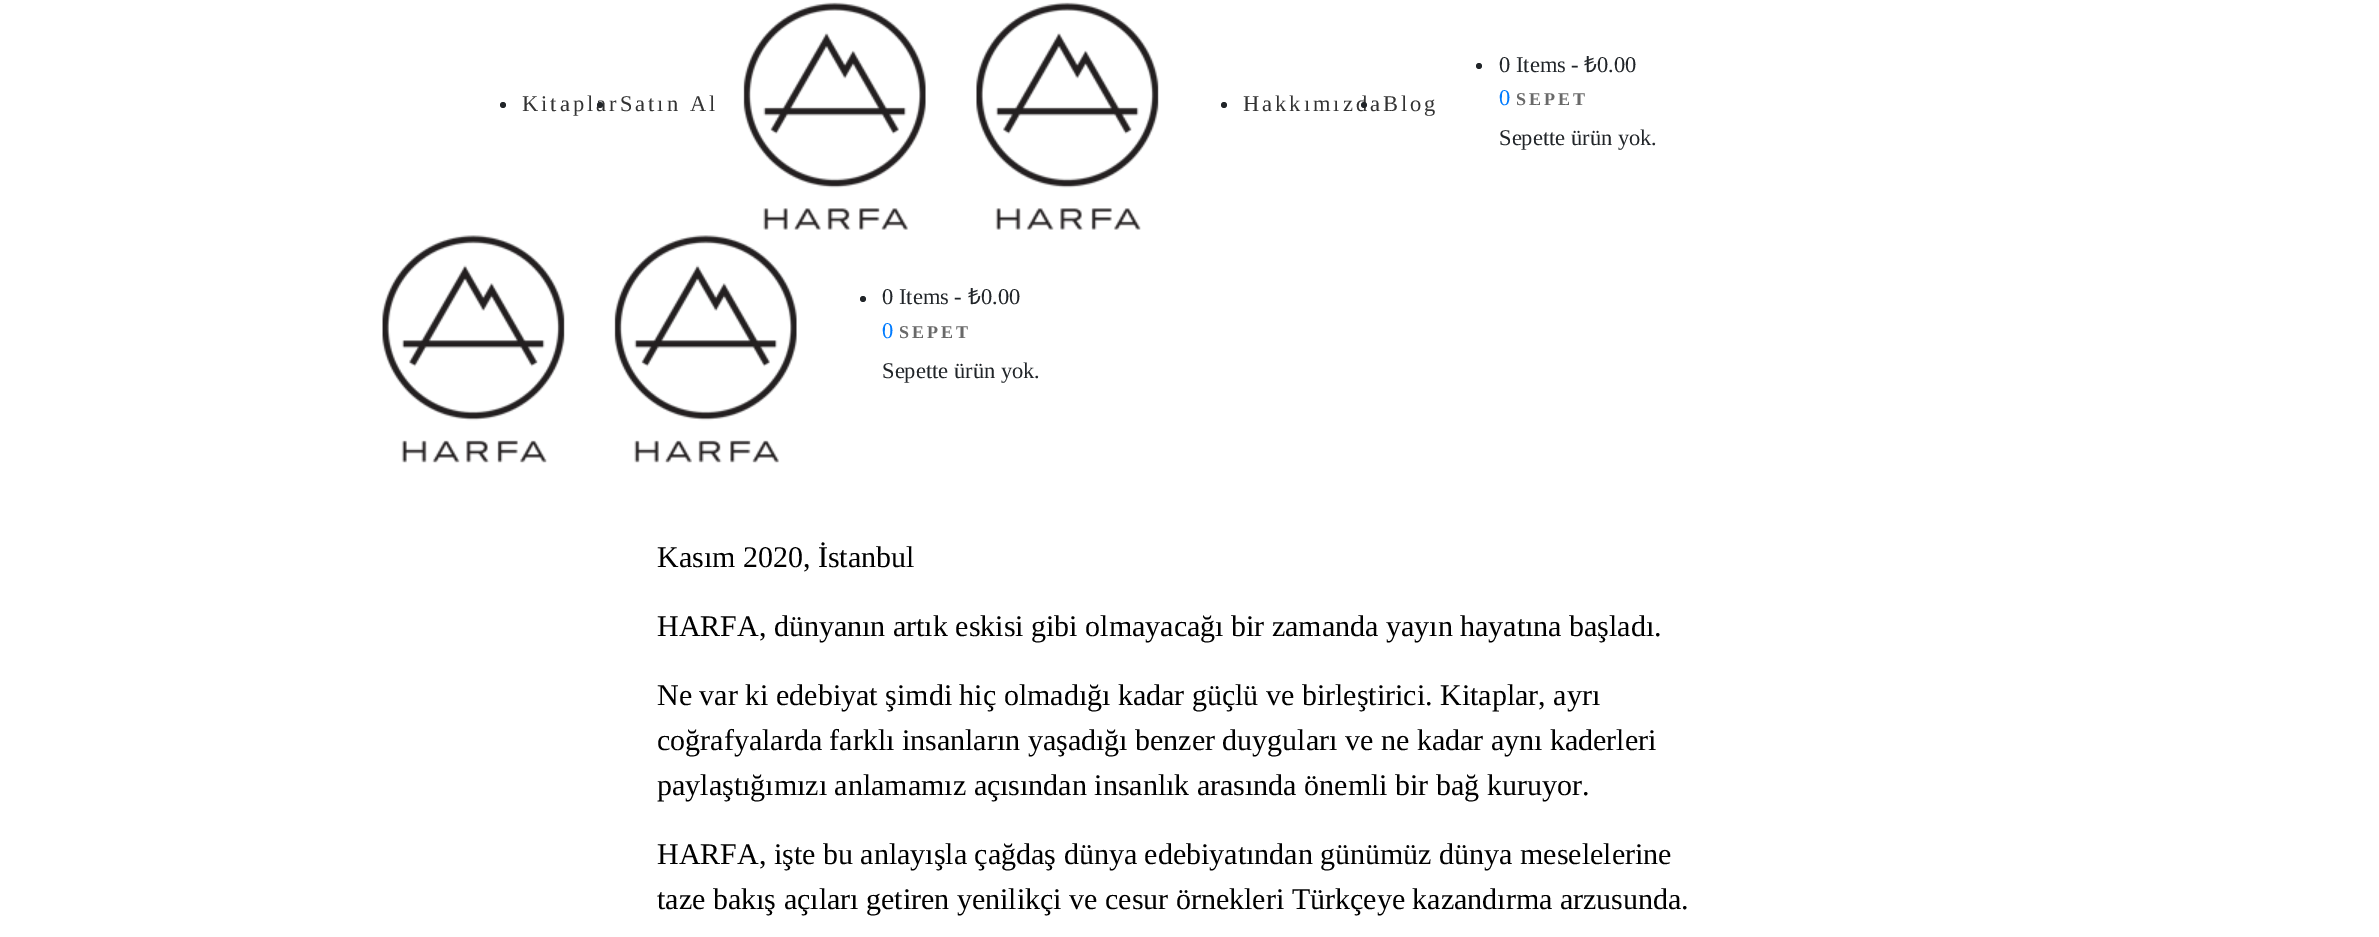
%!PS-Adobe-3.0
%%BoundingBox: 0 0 2379 937
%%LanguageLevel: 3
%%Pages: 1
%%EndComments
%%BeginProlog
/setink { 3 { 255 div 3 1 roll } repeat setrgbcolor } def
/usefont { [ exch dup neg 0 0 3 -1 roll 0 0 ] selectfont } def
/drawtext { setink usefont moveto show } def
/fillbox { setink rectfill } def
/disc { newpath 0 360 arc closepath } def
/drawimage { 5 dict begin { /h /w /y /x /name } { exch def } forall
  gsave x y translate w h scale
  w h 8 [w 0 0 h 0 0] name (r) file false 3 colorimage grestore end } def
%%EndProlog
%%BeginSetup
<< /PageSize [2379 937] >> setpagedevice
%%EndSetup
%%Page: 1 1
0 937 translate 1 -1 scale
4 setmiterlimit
0 0 2379 937 255 255 255 fillbox
33 37 41 setink
503 105 3 disc fill
/LiberationSerif-Regular 22.5 usefont
51 51 51 setink
522 111 moveto 3 0 (KitaplarSatın Al) ashow
33 37 41 setink
600 105 3 disc fill
(assets/img1.rgb) 743 2 183 228 drawimage
(assets/img2.rgb) 976 2 183 228 drawimage
1224 105 3 disc fill
51 51 51 setink
1243 111 moveto 3 0 (HakkımızdaBlog) ashow
33 37 41 setink
1364 105 3 disc fill
1479 66 3 disc fill
(0 Items -) 1499 72 /LiberationSerif-Regular 22.5 33 37 41 drawtext
(₺) 1584 72 /NotoSans-Regular 22.5 33 37 41 drawtext
(0.00) 1597 72 /LiberationSerif-Regular 22.5 33 37 41 drawtext
(0) 1499 105 /LiberationSerif-Regular 22.5 0 123 255 drawtext
/LiberationSerif-Bold 18 usefont
105 105 105 setink
1516 105 moveto 3 0 (SEPET) ashow
(Sepette ürün yok.) 1499 145 /LiberationSerif-Regular 22.5 33 37 41 drawtext
(assets/img3.rgb) 382 235 183 228 drawimage
(assets/img4.rgb) 614 235 183 228 drawimage
863 299 3 disc fill
(0 Items -) 882 304 /LiberationSerif-Regular 22.5 33 37 41 drawtext
(₺) 968 304 /NotoSans-Regular 22.5 33 37 41 drawtext
(0.00) 981 304 /LiberationSerif-Regular 22.5 33 37 41 drawtext
(0) 882 338 /LiberationSerif-Regular 22.5 0 123 255 drawtext
/LiberationSerif-Bold 18 usefont
105 105 105 setink
899 338 moveto 3 0 (SEPET) ashow
(Sepette ürün yok.) 882 378 /LiberationSerif-Regular 22.5 33 37 41 drawtext
(Kasım 2020, İstanbul) 657 567 /LiberationSerif-Regular 30 0 0 0 drawtext
(HARFA, dünyanın artık eskisi gibi olmayacağı bir zamanda yayın hayatına başladı.) 657 636 /LiberationSerif-Regular 30 0 0 0 drawtext
(Ne var ki edebiyat şimdi hiç olmadığı kadar güçlü ve birleştirici. Kitaplar, ayrı) 657 705 /LiberationSerif-Regular 30 0 0 0 drawtext
(coğrafyalarda farklı insanların yaşadığı benzer duyguları ve ne kadar aynı kaderleri) 657 750 /LiberationSerif-Regular 30 0 0 0 drawtext
(paylaştığımızı anlamamız açısından insanlık arasında önemli bir bağ kuruyor.) 657 795 /LiberationSerif-Regular 30 0 0 0 drawtext
(HARFA, işte bu anlayışla çağdaş dünya edebiyatından günümüz dünya meselelerine) 657 864 /LiberationSerif-Regular 30 0 0 0 drawtext
(taze bakış açıları getiren yenilikçi ve cesur örnekleri Türkçeye kazandırma arzusunda.) 657 909 /LiberationSerif-Regular 30 0 0 0 drawtext
showpage
%%EOF
